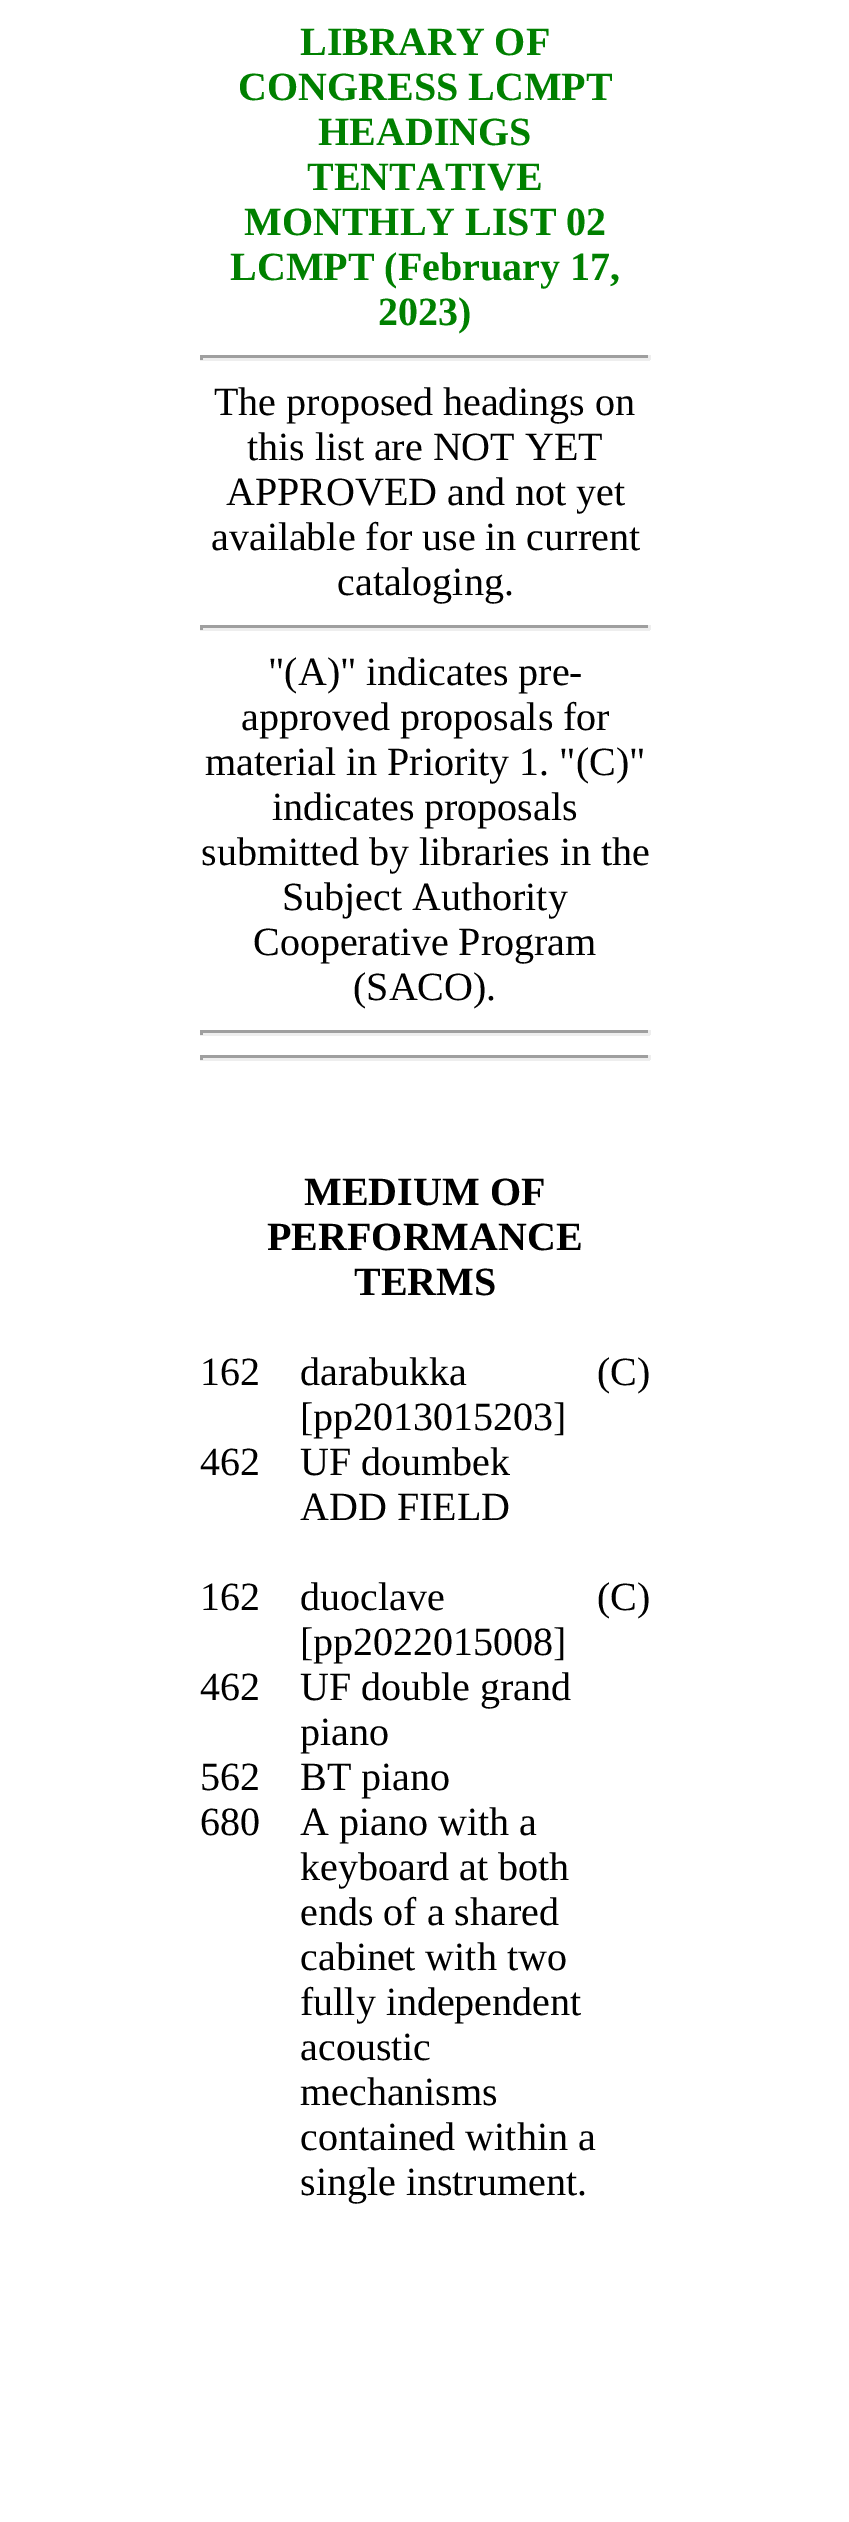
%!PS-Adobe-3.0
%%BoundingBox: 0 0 849 2522
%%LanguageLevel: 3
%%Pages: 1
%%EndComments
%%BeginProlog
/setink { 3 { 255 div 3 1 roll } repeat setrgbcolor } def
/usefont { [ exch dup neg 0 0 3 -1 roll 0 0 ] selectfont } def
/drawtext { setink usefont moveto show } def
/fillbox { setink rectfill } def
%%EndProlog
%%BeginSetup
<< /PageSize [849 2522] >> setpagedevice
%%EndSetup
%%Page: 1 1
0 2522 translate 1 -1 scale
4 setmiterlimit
0 0 849 2522 255 255 255 fillbox
(LIBRARY OF) 300 55 /LiberationSerif-Bold 40 0 128 0 drawtext
(CONGRESS LCMPT) 238 100 /LiberationSerif-Bold 40 0 128 0 drawtext
(HEADINGS) 318 145 /LiberationSerif-Bold 40 0 128 0 drawtext
(TENTATIVE) 307 190 /LiberationSerif-Bold 40 0 128 0 drawtext
(MONTHLY LIST 02) 244 235 /LiberationSerif-Bold 40 0 128 0 drawtext
(LCMPT \(February 17,) 230 280 /LiberationSerif-Bold 40 0 128 0 drawtext
(2023\)) 378 325 /LiberationSerif-Bold 40 0 128 0 drawtext
200 355 450 3 159 159 159 fillbox
648 355 3 5 238 238 238 fillbox
200 358 450 3 238 238 238 fillbox
200 355 3 5 159 159 159 fillbox
(The proposed headings on) 214 415 /LiberationSerif-Regular 40 0 0 0 drawtext
(this list are NOT YET) 247 460 /LiberationSerif-Regular 40 0 0 0 drawtext
(APPROVED and not yet) 226 505 /LiberationSerif-Regular 40 0 0 0 drawtext
(available for use in current) 211 550 /LiberationSerif-Regular 40 0 0 0 drawtext
(cataloging.) 337 595 /LiberationSerif-Regular 40 0 0 0 drawtext
200 625 450 3 159 159 159 fillbox
648 625 3 5 238 238 238 fillbox
200 628 450 3 238 238 238 fillbox
200 625 3 5 159 159 159 fillbox
("\(A\)" indicates pre-) 268 685 /LiberationSerif-Regular 40 0 0 0 drawtext
(approved proposals for) 241 730 /LiberationSerif-Regular 40 0 0 0 drawtext
(material in Priority 1. "\(C\)") 205 775 /LiberationSerif-Regular 40 0 0 0 drawtext
(indicates proposals) 272 820 /LiberationSerif-Regular 40 0 0 0 drawtext
(submitted by libraries in the) 201 865 /LiberationSerif-Regular 40 0 0 0 drawtext
(Subject Authority) 282 910 /LiberationSerif-Regular 40 0 0 0 drawtext
(Cooperative Program) 253 955 /LiberationSerif-Regular 40 0 0 0 drawtext
(\(SACO\).) 353 1000 /LiberationSerif-Regular 40 0 0 0 drawtext
200 1030 450 3 159 159 159 fillbox
648 1030 3 5 238 238 238 fillbox
200 1033 450 3 238 238 238 fillbox
200 1030 3 5 159 159 159 fillbox
200 1055 450 3 159 159 159 fillbox
648 1055 3 5 238 238 238 fillbox
200 1058 450 3 238 238 238 fillbox
200 1055 3 5 159 159 159 fillbox
(MEDIUM OF) 304 1205 /LiberationSerif-Bold 40 0 0 0 drawtext
(PERFORMANCE) 267 1250 /LiberationSerif-Bold 40 0 0 0 drawtext
(TERMS) 354 1295 /LiberationSerif-Bold 40 0 0 0 drawtext
(162) 200 1385 /LiberationSerif-Regular 40 0 0 0 drawtext
(darabukka) 300 1385 /LiberationSerif-Regular 40 0 0 0 drawtext
([pp2013015203]) 300 1430 /LiberationSerif-Regular 40 0 0 0 drawtext
(\(C\)) 597 1385 /LiberationSerif-Regular 40 0 0 0 drawtext
(462) 200 1475 /LiberationSerif-Regular 40 0 0 0 drawtext
(UF doumbek) 300 1475 /LiberationSerif-Regular 40 0 0 0 drawtext
(ADD FIELD) 300 1520 /LiberationSerif-Regular 40 0 0 0 drawtext
(162) 200 1610 /LiberationSerif-Regular 40 0 0 0 drawtext
(duoclave) 300 1610 /LiberationSerif-Regular 40 0 0 0 drawtext
([pp2022015008]) 300 1655 /LiberationSerif-Regular 40 0 0 0 drawtext
(\(C\)) 597 1610 /LiberationSerif-Regular 40 0 0 0 drawtext
(462) 200 1700 /LiberationSerif-Regular 40 0 0 0 drawtext
(UF double grand) 300 1700 /LiberationSerif-Regular 40 0 0 0 drawtext
(piano) 300 1745 /LiberationSerif-Regular 40 0 0 0 drawtext
(562) 200 1790 /LiberationSerif-Regular 40 0 0 0 drawtext
(BT piano) 300 1790 /LiberationSerif-Regular 40 0 0 0 drawtext
(680) 200 1835 /LiberationSerif-Regular 40 0 0 0 drawtext
(A piano with a) 300 1835 /LiberationSerif-Regular 40 0 0 0 drawtext
(keyboard at both) 300 1880 /LiberationSerif-Regular 40 0 0 0 drawtext
(ends of a shared) 300 1925 /LiberationSerif-Regular 40 0 0 0 drawtext
(cabinet with two) 300 1970 /LiberationSerif-Regular 40 0 0 0 drawtext
(fully independent) 300 2015 /LiberationSerif-Regular 40 0 0 0 drawtext
(acoustic) 300 2060 /LiberationSerif-Regular 40 0 0 0 drawtext
(mechanisms) 300 2105 /LiberationSerif-Regular 40 0 0 0 drawtext
(contained within a) 300 2150 /LiberationSerif-Regular 40 0 0 0 drawtext
(single instrument.) 300 2195 /LiberationSerif-Regular 40 0 0 0 drawtext
showpage
%%EOF
